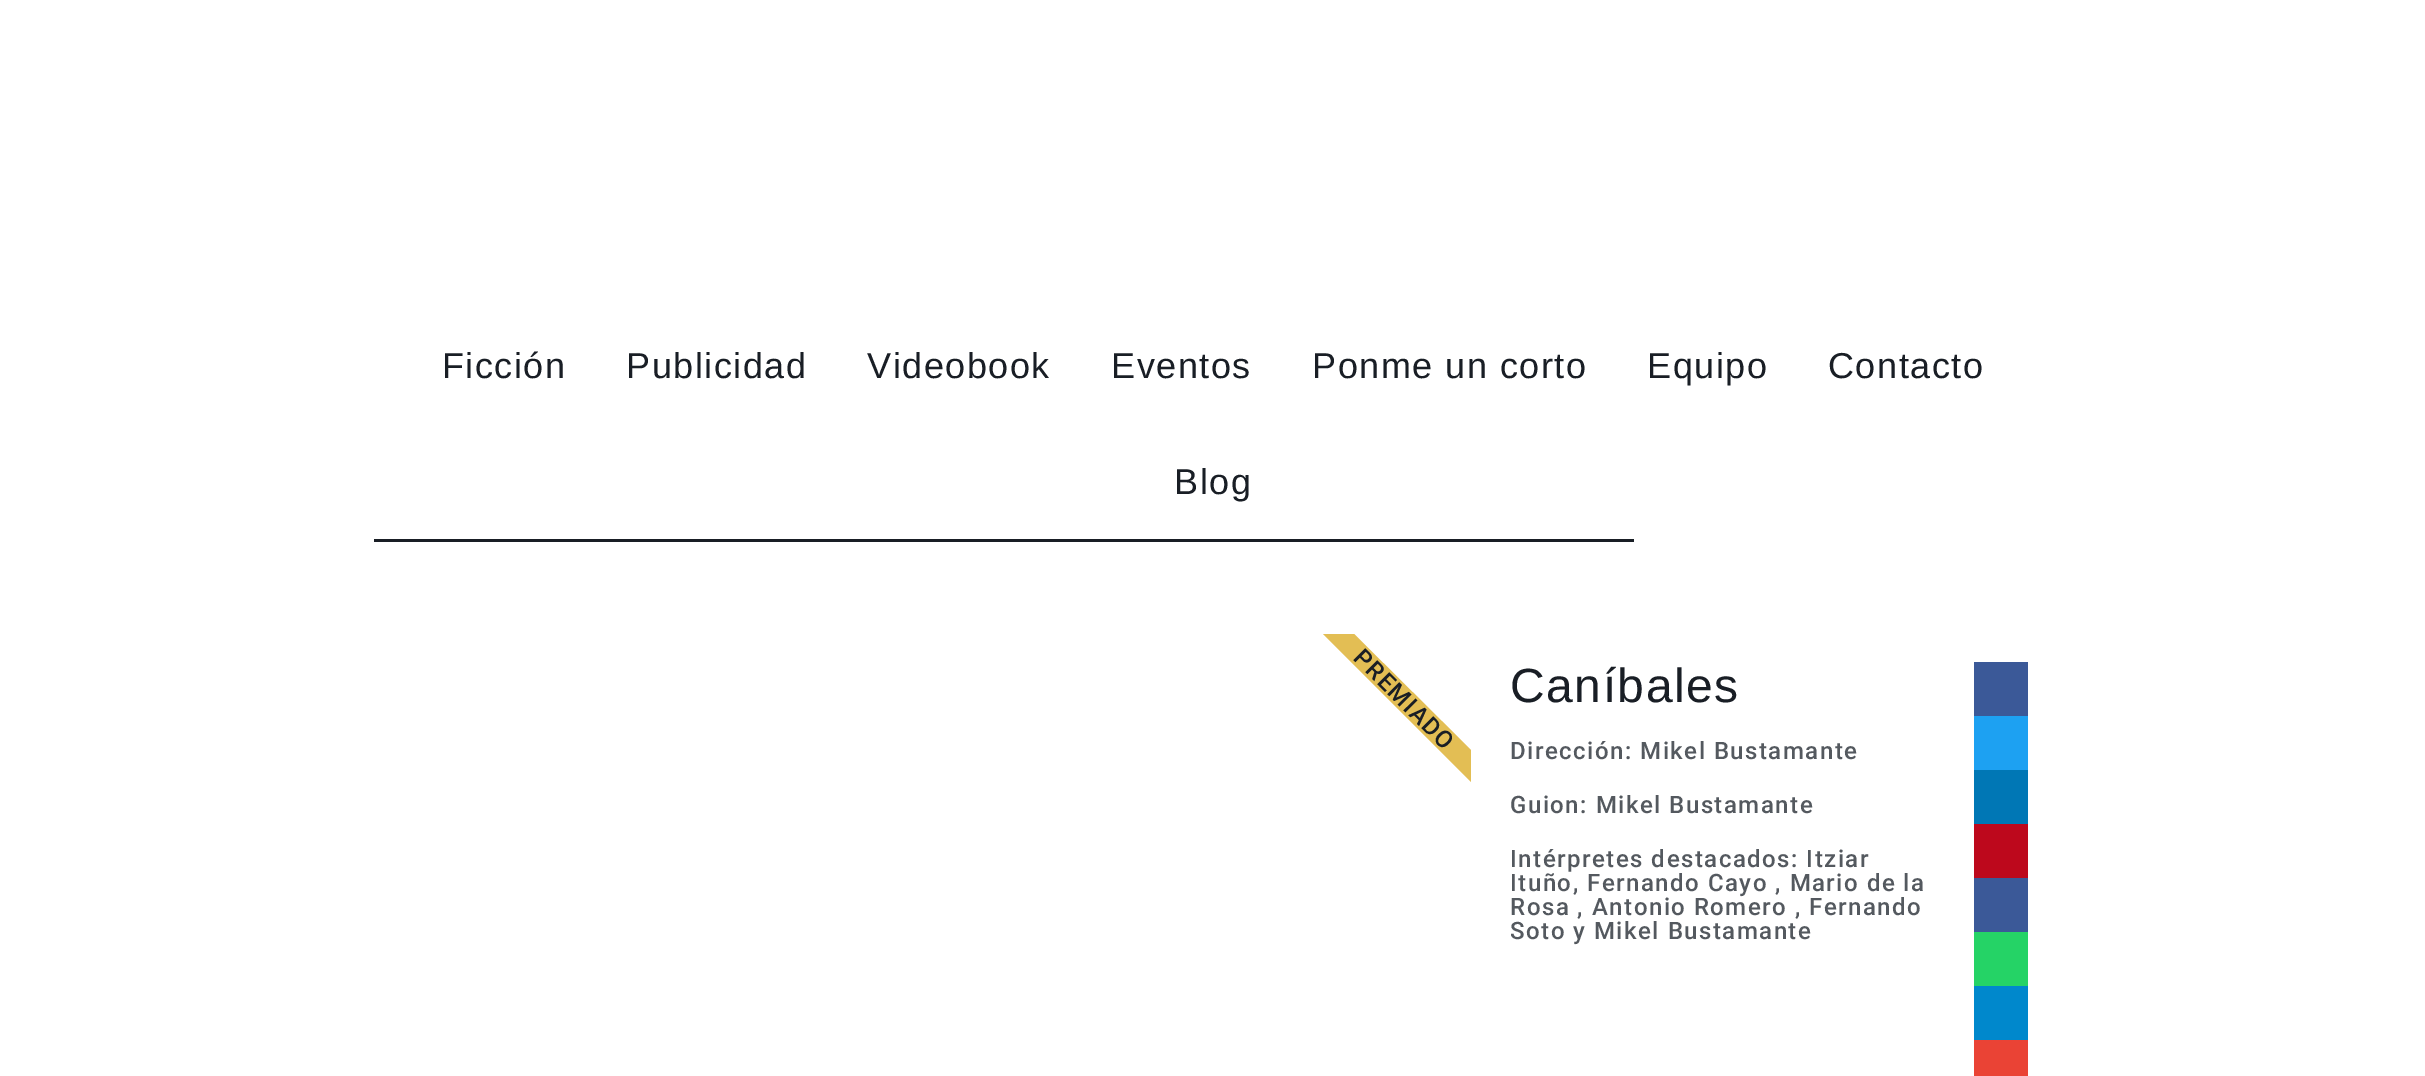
%!PS-Adobe-3.0
%%BoundingBox: 0 0 2425 1076
%%LanguageLevel: 3
%%Pages: 1
%%EndComments
%%BeginProlog
/setink { 3 { 255 div 3 1 roll } repeat setrgbcolor } def
/usefont { [ exch dup neg 0 0 3 -1 roll 0 0 ] selectfont } def
/fillbox { setink rectfill } def
%%EndProlog
%%BeginSetup
<< /PageSize [2425 1076] >> setpagedevice
%%EndSetup
%%Page: 1 1
0 1076 translate 1 -1 scale
4 setmiterlimit
0 0 2425 1076 255 255 255 fillbox
374 539 1260 3 25 30 37 fillbox
/LiberationSans-Regular 36 usefont
442 378 moveto 1.5 0 (Ficción) ashow
626 378 moveto 1.5 0 (Publicidad) ashow
867 378 moveto 1.5 0 (Videobook) ashow
1111 378 moveto 1.5 0 (Eventos) ashow
1312 378 moveto 1.5 0 (Ponme un corto) ashow
1647 378 moveto 1.5 0 (Equipo) ashow
1828 378 moveto 1.5 0 (Contacto) ashow
1174 494 moveto 1.5 0 (Blog) ashow
227 190 84 setink
1471 782 moveto 1323 634 lineto 1354 634 lineto 1471 750 lineto closepath fill
/Roboto-Medium 24 usefont
25 30 37 setink
gsave 1352 659 translate 45 rotate 0 0 moveto 1.5 0 (PREMIADO) ashow grestore
/LiberationSans-Regular 48 usefont
1510 702 moveto 1.5 0 (Caníbales) ashow
/Roboto-Medium 24 usefont
84 89 95 setink
1510 759 moveto 1.5 0 (Dirección: Mikel Bustamante) ashow
1510 813 moveto 1.5 0 (Guion: Mikel Bustamante) ashow
1510 867 moveto 1.5 0 (Intérpretes destacados: Itziar) ashow
1510 891 moveto 1.5 0 (Ituño, Fernando Cayo , Mario de la) ashow
1510 915 moveto 1.5 0 (Rosa , Antonio Romero , Fernando) ashow
1510 939 moveto 1.5 0 (Soto y Mikel Bustamante) ashow
1974 662 54 54 59 89 152 fillbox
1974 716 54 54 29 161 242 fillbox
1974 770 54 54 0 119 181 fillbox
1974 824 54 54 189 8 28 fillbox
1974 878 54 54 59 89 152 fillbox
1974 932 54 54 37 211 102 fillbox
1974 986 54 54 0 136 204 fillbox
1974 1040 54 36 234 67 53 fillbox
showpage
%%EOF
